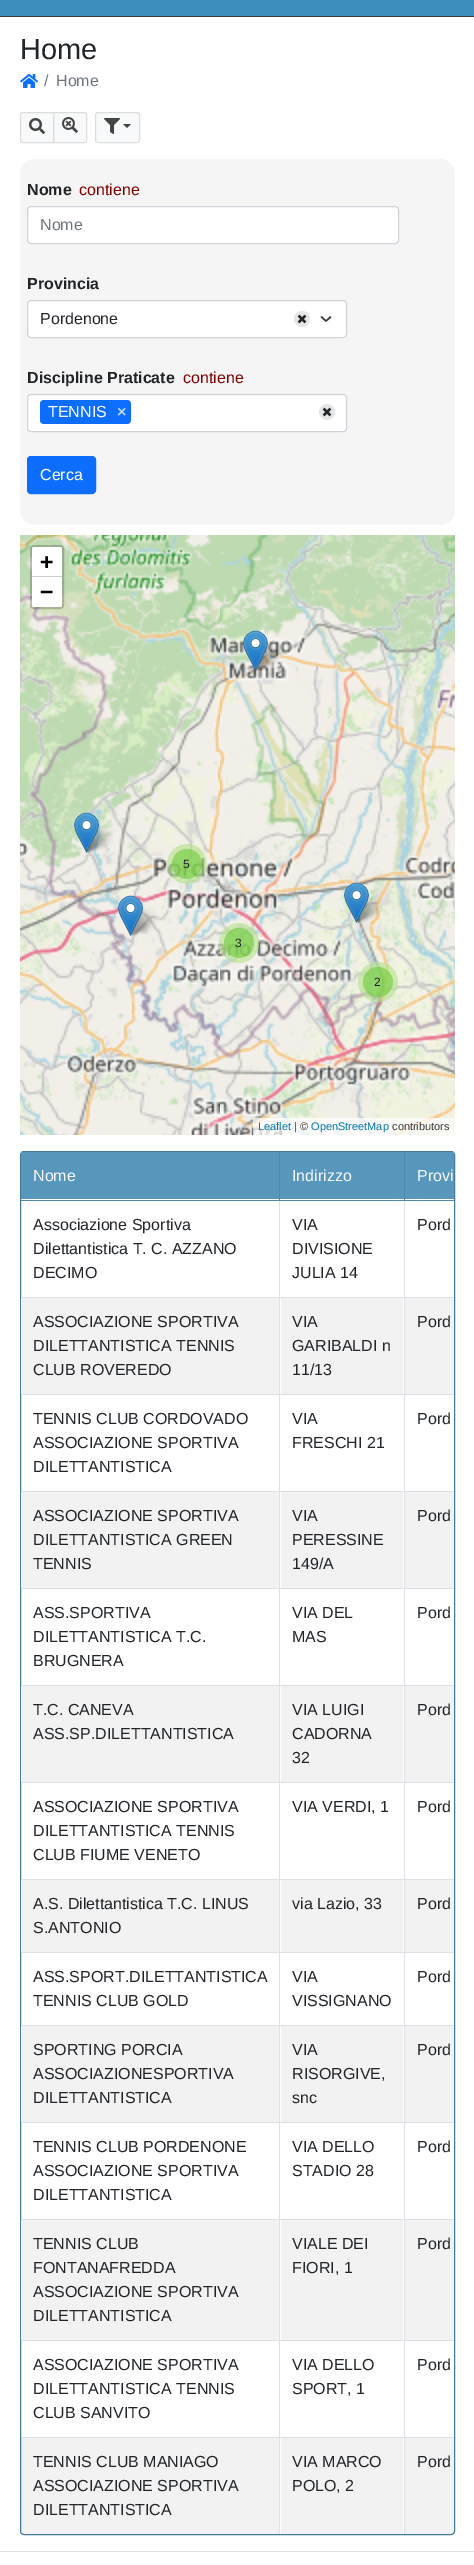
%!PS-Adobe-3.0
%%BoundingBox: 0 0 474 2565
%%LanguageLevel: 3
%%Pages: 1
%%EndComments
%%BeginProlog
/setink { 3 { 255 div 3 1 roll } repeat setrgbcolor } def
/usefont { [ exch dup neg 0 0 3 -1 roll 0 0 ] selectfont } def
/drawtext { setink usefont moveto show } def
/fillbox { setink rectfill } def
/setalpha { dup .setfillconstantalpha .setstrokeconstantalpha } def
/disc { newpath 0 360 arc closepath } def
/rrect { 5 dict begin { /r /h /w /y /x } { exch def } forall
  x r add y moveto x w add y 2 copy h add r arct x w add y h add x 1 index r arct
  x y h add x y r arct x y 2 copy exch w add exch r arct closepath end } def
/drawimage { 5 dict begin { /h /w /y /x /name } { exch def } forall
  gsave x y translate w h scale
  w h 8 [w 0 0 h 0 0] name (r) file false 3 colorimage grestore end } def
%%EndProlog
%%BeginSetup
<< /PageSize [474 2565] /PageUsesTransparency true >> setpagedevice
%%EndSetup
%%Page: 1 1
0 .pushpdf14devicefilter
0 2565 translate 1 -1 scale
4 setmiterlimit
0 0 474 2565 255 255 255 fillbox
0 0 474 16 60 141 188 fillbox
0 16 474 1 55 59 62 fillbox
(Home) 20 59 /LiberationSans-Regular 29 33 37 41 drawtext
(assets/img1.rgb) 20 74 18 14 drawimage
(/) 44 86 /LiberationSans-Regular 16 108 117 125 drawtext
(Home) 56 86 /LiberationSans-Regular 16 108 117 125 drawtext
248 249 250 setink
53.5 112.5 moveto 84 112.5 lineto 85.5 112.5 86.5 113.5 86.5 115 curveto 86.5 140 lineto 86.5 141.5 85.5 142.5 84 142.5 curveto 53.5 142.5 lineto closepath gsave fill grestore
221 221 221 setink
stroke
248 249 250 setink
23 112.5 moveto 53.5 112.5 lineto 53.5 142.5 lineto 23 142.5 lineto 21.5 142.5 20.5 141.5 20.5 140 curveto 20.5 115 lineto 20.5 113.5 21.5 112.5 23 112.5 curveto closepath gsave fill grestore
221 221 221 setink
stroke
(assets/img2.rgb) 29 118 16 16 drawimage
(assets/img3.rgb) 62 117 16 16 drawimage
248 249 250 setink
95.5 112.5 44 30 2.5 rrect gsave fill grestore
221 221 221 setink
stroke
(assets/img4.rgb) 104 118 16 16 drawimage
68 68 68 setink
123 124 moveto 131 124 lineto 127 128 lineto closepath fill
245 245 245 setink
20 159 435 366 15 rrect fill
(Nome) 27 195 /LiberationSans-Bold 16 33 37 41 drawtext
(contiene) 79 195 /LiberationSans-Regular 16 128 0 0 drawtext
255 255 255 setink
27.5 206.5 371 37 3.5 rrect gsave fill grestore
206 212 218 setink
stroke
(Nome) 40 230 /LiberationSans-Regular 16 108 117 125 drawtext
(Provincia) 27 289 /LiberationSans-Bold 16 33 37 41 drawtext
255 255 255 setink
27 300 320 38 4 rrect fill
52 58 64 setink
1.5 setlinewidth
1 setlinecap
1 setlinejoin
321.5 317 moveto 326 321 lineto 330.5 317 lineto stroke
206 212 218 setink
1 setlinewidth
0 setlinecap
0 setlinejoin
27.5 300.5 319 37 3.5 rrect stroke
(Pordenone) 40 324 /LiberationSans-Regular 16 33 37 41 drawtext
230 230 230 setink
302 319 8 disc fill
(assets/img5.rgb) 297 314 10 10 drawimage
(Discipline Praticate) 27 383 /LiberationSans-Bold 16 33 37 41 drawtext
(contiene) 183 383 /LiberationSans-Regular 16 128 0 0 drawtext
255 255 255 setink
27.5 394.5 319 37 3.5 rrect gsave fill grestore
206 212 218 setink
stroke
13 110 253 setink
40 400 91 24 4 rrect fill
(TENNIS) 48 417 /LiberationSans-Regular 16 255 255 255 drawtext
(×) 117 417 /LiberationSans-Bold 16 182 212 254 drawtext
230 230 230 setink
327 412 8 disc fill
(assets/img5.rgb) 322 407 10 10 drawimage
13 110 253 setink
27.5 456.5 68 37 3.5 rrect gsave fill grestore
stroke
(Cerca) 40 480 /LiberationSans-Regular 16 255 255 255 drawtext
(assets/img6.rgb) 20 535 200 225 drawimage
0.2 setalpha
0 0 0 setink
2 setlinewidth
31 546 32 62 3 rrect stroke
1 setalpha
255 255 255 setink
34 547 moveto 60 547 lineto 61 547 62 548 62 549 curveto 62 577 lineto 32 577 lineto 32 549 lineto 32 548 33 547 34 547 curveto closepath fill
32 576 30 1 204 204 204 fillbox
(+) 40 569 /DejaVuSansMono-Bold 22 0 0 0 drawtext
255 255 255 setink
32 577 moveto 62 577 lineto 62 605 lineto 62 606 61 607 60 607 curveto 34 607 lineto 33 607 32 606 32 605 curveto closepath fill
(−) 40 599 /DejaVuSansMono-Bold 22 0 0 0 drawtext
(assets/img9.rgb) 220 760 235 375 drawimage
0.7 setalpha
253 1118 202 17 255 255 255 fillbox
1 setalpha
(Leaflet) 258 1130 /LiberationSans-Regular 11 0 120 168 drawtext
(| ©) 294 1130 /LiberationSans-Regular 11 51 51 51 drawtext
(OpenStreetMap) 311 1130 /LiberationSans-Regular 11 0 120 168 drawtext
(contributors) 392 1130 /LiberationSans-Regular 11 51 51 51 drawtext
(assets/img7.rgb) 220 535 235 225 drawimage
(assets/img8.rgb) 20 760 200 375 drawimage
(assets/img10.rgb) 253 643 29 28 drawimage
(assets/img11.rgb) 84 825 29 28 drawimage
(assets/img12.rgb) 128 908 29 28 drawimage
(assets/img13.rgb) 354 895 29 28 drawimage
(assets/img14.rgb) 243 630 25 41 drawimage
(assets/img15.rgb) 74 812 25 41 drawimage
0.6 setalpha
181 226 140 setink
187 864 20 disc fill
110 204 57 setink
187 864 15 disc fill
1 setalpha
(5) 183 868 /LiberationSans-Regular 12 33 37 41 drawtext
(assets/img16.rgb) 118 895 25 41 drawimage
(assets/img17.rgb) 344 882 25 41 drawimage
0.6 setalpha
181 226 140 setink
239 943 20 disc fill
110 204 57 setink
239 943 15 disc fill
1 setalpha
(3) 235 947 /LiberationSans-Regular 12 33 37 41 drawtext
0.6 setalpha
181 226 140 setink
378 982 20 disc fill
110 204 57 setink
378 982 15 disc fill
1 setalpha
(2) 374 986 /LiberationSans-Regular 12 33 37 41 drawtext
70 123 153 setink
1 setlinewidth
20.5 1151.5 434 1383 3.5 rrect stroke
21 1152 433 47 87 151 188 fillbox
21 1200 433 1 80 139 173 fillbox
(Nome) 33 1181 /LiberationSans-Regular 16 248 248 255 drawtext
21 1297 433 1 222 226 230 fillbox
21 1394 433 1 222 226 230 fillbox
21 1491 433 1 222 226 230 fillbox
21 1588 433 1 222 226 230 fillbox
21 1685 433 1 222 226 230 fillbox
21 1782 433 1 222 226 230 fillbox
21 1879 433 1 222 226 230 fillbox
21 1952 433 1 222 226 230 fillbox
21 2025 433 1 222 226 230 fillbox
21 2122 433 1 222 226 230 fillbox
21 2219 433 1 222 226 230 fillbox
21 2340 433 1 222 226 230 fillbox
21 2437 433 1 222 226 230 fillbox
279 1200 1 1334 222 226 230 fillbox
279 1152 1 49 80 139 173 fillbox
(Indirizzo) 292 1181 /LiberationSans-Regular 16 248 248 255 drawtext
404 1200 1 1334 222 226 230 fillbox
404 1152 1 49 80 139 173 fillbox
(Provi) 417 1181 /LiberationSans-Regular 16 248 248 255 drawtext
(Associazione Sportiva) 33 1230 /LiberationSans-Regular 16 33 37 41 drawtext
(Dilettantistica T. C. AZZANO) 33 1254 /LiberationSans-Regular 16 33 37 41 drawtext
(DECIMO) 33 1278 /LiberationSans-Regular 16 33 37 41 drawtext
(VIA) 292 1230 /LiberationSans-Regular 16 33 37 41 drawtext
(DIVISIONE) 292 1254 /LiberationSans-Regular 16 33 37 41 drawtext
(JULIA 14) 292 1278 /LiberationSans-Regular 16 33 37 41 drawtext
(Pord) 417 1230 /LiberationSans-Regular 16 33 37 41 drawtext
21 1298 258 96 242 242 242 fillbox
(ASSOCIAZIONE SPORTIVA) 33 1327 /LiberationSans-Regular 16 33 37 41 drawtext
(DILETTANTISTICA TENNIS) 33 1351 /LiberationSans-Regular 16 33 37 41 drawtext
(CLUB ROVEREDO) 33 1375 /LiberationSans-Regular 16 33 37 41 drawtext
281 1298 122 96 242 242 242 fillbox
(VIA) 292 1327 /LiberationSans-Regular 16 33 37 41 drawtext
(GARIBALDI n) 292 1351 /LiberationSans-Regular 16 33 37 41 drawtext
(11/13) 292 1375 /LiberationSans-Regular 16 33 37 41 drawtext
405 1298 49 96 242 242 242 fillbox
(Pord) 417 1327 /LiberationSans-Regular 16 33 37 41 drawtext
(TENNIS CLUB CORDOVADO) 33 1424 /LiberationSans-Regular 16 33 37 41 drawtext
(ASSOCIAZIONE SPORTIVA) 33 1448 /LiberationSans-Regular 16 33 37 41 drawtext
(DILETTANTISTICA) 33 1472 /LiberationSans-Regular 16 33 37 41 drawtext
(VIA) 292 1424 /LiberationSans-Regular 16 33 37 41 drawtext
(FRESCHI 21) 292 1448 /LiberationSans-Regular 16 33 37 41 drawtext
(Pord) 417 1424 /LiberationSans-Regular 16 33 37 41 drawtext
21 1492 258 96 242 242 242 fillbox
(ASSOCIAZIONE SPORTIVA) 33 1521 /LiberationSans-Regular 16 33 37 41 drawtext
(DILETTANTISTICA GREEN) 33 1545 /LiberationSans-Regular 16 33 37 41 drawtext
(TENNIS) 33 1569 /LiberationSans-Regular 16 33 37 41 drawtext
281 1492 122 96 242 242 242 fillbox
(VIA) 292 1521 /LiberationSans-Regular 16 33 37 41 drawtext
(PERESSINE) 292 1545 /LiberationSans-Regular 16 33 37 41 drawtext
(149/A) 292 1569 /LiberationSans-Regular 16 33 37 41 drawtext
405 1492 49 96 242 242 242 fillbox
(Pord) 417 1521 /LiberationSans-Regular 16 33 37 41 drawtext
(ASS.SPORTIVA) 33 1618 /LiberationSans-Regular 16 33 37 41 drawtext
(DILETTANTISTICA T.C.) 33 1642 /LiberationSans-Regular 16 33 37 41 drawtext
(BRUGNERA) 33 1666 /LiberationSans-Regular 16 33 37 41 drawtext
(VIA DEL) 292 1618 /LiberationSans-Regular 16 33 37 41 drawtext
(MAS) 292 1642 /LiberationSans-Regular 16 33 37 41 drawtext
(Pord) 417 1618 /LiberationSans-Regular 16 33 37 41 drawtext
21 1686 258 96 242 242 242 fillbox
(T.C. CANEVA) 33 1715 /LiberationSans-Regular 16 33 37 41 drawtext
(ASS.SP.DILETTANTISTICA) 33 1739 /LiberationSans-Regular 16 33 37 41 drawtext
281 1686 122 96 242 242 242 fillbox
(VIA LUIGI) 292 1715 /LiberationSans-Regular 16 33 37 41 drawtext
(CADORNA) 292 1739 /LiberationSans-Regular 16 33 37 41 drawtext
(32) 292 1763 /LiberationSans-Regular 16 33 37 41 drawtext
405 1686 49 96 242 242 242 fillbox
(Pord) 417 1715 /LiberationSans-Regular 16 33 37 41 drawtext
(ASSOCIAZIONE SPORTIVA) 33 1812 /LiberationSans-Regular 16 33 37 41 drawtext
(DILETTANTISTICA TENNIS) 33 1836 /LiberationSans-Regular 16 33 37 41 drawtext
(CLUB FIUME VENETO) 33 1860 /LiberationSans-Regular 16 33 37 41 drawtext
(VIA VERDI, 1) 292 1812 /LiberationSans-Regular 16 33 37 41 drawtext
(Pord) 417 1812 /LiberationSans-Regular 16 33 37 41 drawtext
21 1880 258 72 242 242 242 fillbox
(A.S. Dilettantistica T.C. LINUS) 33 1909 /LiberationSans-Regular 16 33 37 41 drawtext
(S.ANTONIO) 33 1933 /LiberationSans-Regular 16 33 37 41 drawtext
281 1880 122 72 242 242 242 fillbox
(via Lazio, 33) 292 1909 /LiberationSans-Regular 16 33 37 41 drawtext
405 1880 49 72 242 242 242 fillbox
(Pord) 417 1909 /LiberationSans-Regular 16 33 37 41 drawtext
(ASS.SPORT.DILETTANTISTICA) 33 1982 /LiberationSans-Regular 16 33 37 41 drawtext
(TENNIS CLUB GOLD) 33 2006 /LiberationSans-Regular 16 33 37 41 drawtext
(VIA) 292 1982 /LiberationSans-Regular 16 33 37 41 drawtext
(VISSIGNANO) 292 2006 /LiberationSans-Regular 16 33 37 41 drawtext
(Pord) 417 1982 /LiberationSans-Regular 16 33 37 41 drawtext
21 2026 258 96 242 242 242 fillbox
(SPORTING PORCIA) 33 2055 /LiberationSans-Regular 16 33 37 41 drawtext
(ASSOCIAZIONESPORTIVA) 33 2079 /LiberationSans-Regular 16 33 37 41 drawtext
(DILETTANTISTICA) 33 2103 /LiberationSans-Regular 16 33 37 41 drawtext
281 2026 122 96 242 242 242 fillbox
(VIA) 292 2055 /LiberationSans-Regular 16 33 37 41 drawtext
(RISORGIVE,) 292 2079 /LiberationSans-Regular 16 33 37 41 drawtext
(snc) 292 2103 /LiberationSans-Regular 16 33 37 41 drawtext
405 2026 49 96 242 242 242 fillbox
(Pord) 417 2055 /LiberationSans-Regular 16 33 37 41 drawtext
(TENNIS CLUB PORDENONE) 33 2152 /LiberationSans-Regular 16 33 37 41 drawtext
(ASSOCIAZIONE SPORTIVA) 33 2176 /LiberationSans-Regular 16 33 37 41 drawtext
(DILETTANTISTICA) 33 2200 /LiberationSans-Regular 16 33 37 41 drawtext
(VIA DELLO) 292 2152 /LiberationSans-Regular 16 33 37 41 drawtext
(STADIO 28) 292 2176 /LiberationSans-Regular 16 33 37 41 drawtext
(Pord) 417 2152 /LiberationSans-Regular 16 33 37 41 drawtext
21 2220 258 120 242 242 242 fillbox
(TENNIS CLUB) 33 2249 /LiberationSans-Regular 16 33 37 41 drawtext
(FONTANAFREDDA) 33 2273 /LiberationSans-Regular 16 33 37 41 drawtext
(ASSOCIAZIONE SPORTIVA) 33 2297 /LiberationSans-Regular 16 33 37 41 drawtext
(DILETTANTISTICA) 33 2321 /LiberationSans-Regular 16 33 37 41 drawtext
281 2220 122 120 242 242 242 fillbox
(VIALE DEI) 292 2249 /LiberationSans-Regular 16 33 37 41 drawtext
(FIORI, 1) 292 2273 /LiberationSans-Regular 16 33 37 41 drawtext
405 2220 49 120 242 242 242 fillbox
(Pord) 417 2249 /LiberationSans-Regular 16 33 37 41 drawtext
(ASSOCIAZIONE SPORTIVA) 33 2370 /LiberationSans-Regular 16 33 37 41 drawtext
(DILETTANTISTICA TENNIS) 33 2394 /LiberationSans-Regular 16 33 37 41 drawtext
(CLUB SANVITO) 33 2418 /LiberationSans-Regular 16 33 37 41 drawtext
(VIA DELLO) 292 2370 /LiberationSans-Regular 16 33 37 41 drawtext
(SPORT, 1) 292 2394 /LiberationSans-Regular 16 33 37 41 drawtext
(Pord) 417 2370 /LiberationSans-Regular 16 33 37 41 drawtext
0.05 setalpha
21 2438 258 96 0 0 0 fillbox
1 setalpha
(TENNIS CLUB MANIAGO) 33 2467 /LiberationSans-Regular 16 33 37 41 drawtext
(ASSOCIAZIONE SPORTIVA) 33 2491 /LiberationSans-Regular 16 33 37 41 drawtext
(DILETTANTISTICA) 33 2515 /LiberationSans-Regular 16 33 37 41 drawtext
281 2438 122 96 242 242 242 fillbox
(VIA MARCO) 292 2467 /LiberationSans-Regular 16 33 37 41 drawtext
(POLO, 2) 292 2491 /LiberationSans-Regular 16 33 37 41 drawtext
0.05 setalpha
405 2438 49 96 0 0 0 fillbox
1 setalpha
(Pord) 417 2467 /LiberationSans-Regular 16 33 37 41 drawtext
0 2551 474 1 222 226 230 fillbox
.poppdf14devicefilter showpage
%%EOF
